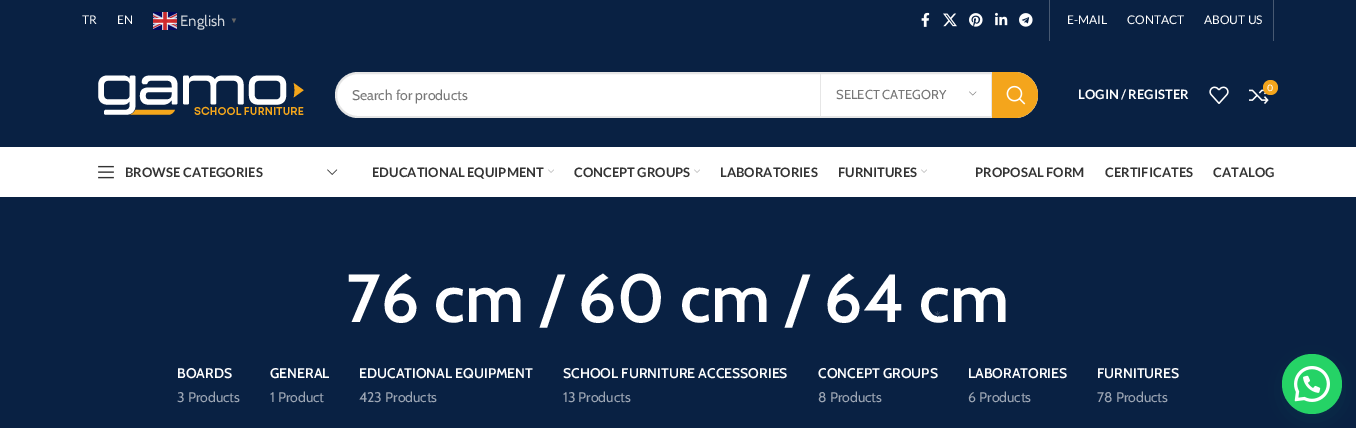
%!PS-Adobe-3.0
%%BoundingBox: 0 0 1356 428
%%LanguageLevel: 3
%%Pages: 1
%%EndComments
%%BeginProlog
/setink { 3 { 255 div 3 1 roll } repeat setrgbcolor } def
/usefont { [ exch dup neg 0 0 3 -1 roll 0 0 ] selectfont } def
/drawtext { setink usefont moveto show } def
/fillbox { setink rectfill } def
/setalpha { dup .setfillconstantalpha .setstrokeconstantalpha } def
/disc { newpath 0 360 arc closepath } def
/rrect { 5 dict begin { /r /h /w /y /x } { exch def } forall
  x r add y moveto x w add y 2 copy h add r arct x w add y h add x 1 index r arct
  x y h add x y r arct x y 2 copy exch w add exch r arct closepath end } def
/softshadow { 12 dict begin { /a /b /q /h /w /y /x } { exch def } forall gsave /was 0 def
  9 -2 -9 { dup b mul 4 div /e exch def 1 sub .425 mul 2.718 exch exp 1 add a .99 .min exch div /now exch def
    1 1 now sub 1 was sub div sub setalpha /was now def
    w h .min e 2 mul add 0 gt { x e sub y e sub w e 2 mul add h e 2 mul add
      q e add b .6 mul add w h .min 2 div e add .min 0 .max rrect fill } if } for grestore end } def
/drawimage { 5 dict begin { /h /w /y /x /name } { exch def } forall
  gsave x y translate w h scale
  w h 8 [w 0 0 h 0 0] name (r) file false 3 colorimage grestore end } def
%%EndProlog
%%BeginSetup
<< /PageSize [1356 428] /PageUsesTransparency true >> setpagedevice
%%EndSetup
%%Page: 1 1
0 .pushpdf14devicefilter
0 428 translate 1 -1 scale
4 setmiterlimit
0 0 1356 428 255 255 255 fillbox
0 0 1356 147 9 33 67 fillbox
(TR) 82 24 /Lato-Regular 12 255 255 255 drawtext
(EN) 117 24 /Lato-Regular 12 255 255 255 drawtext
(assets/img1.rgb) 153 12 24 18 drawimage
(English) 180 26 /Cabin-Regular 15 206 211 217 drawtext
(▼) 230 23 /LiberationSans-Bold 8 102 102 102 drawtext
(assets/img2.rgb) 921 12 9 15 drawimage
(assets/img3.rgb) 943 13 14 14 drawimage
(assets/img4.rgb) 969 13 14 14 drawimage
(assets/img5.rgb) 995 12 13 14 drawimage
(assets/img6.rgb) 1019 13 14 14 drawimage
1049 0 1 41 71 89 114 fillbox
(E-MAIL) 1067 24 /Lato-Regular 12 255 255 255 drawtext
(CONTACT) 1127 24 /Lato-Regular 12 255 255 255 drawtext
(ABOUT US) 1204 24 /Lato-Regular 12 255 255 255 drawtext
1273 0 1 41 71 89 114 fillbox
(assets/img7.rgb) 98 75 206 40 drawimage
255 255 255 setink
335 72 703 46 23 rrect fill
0.1 setalpha
0 0 0 setink
2 setlinewidth
336 73 701 44 22 rrect stroke
1 setalpha
(Search for products) 352 100 /Cabin-Regular 14 119 119 119 drawtext
991 74 1 42 230 230 230 fillbox
820 74 1 42 230 230 230 fillbox
(SELECT CATEGORY) 836 99 /Cabin-Regular 13 119 119 119 drawtext
(assets/img8.rgb) 969 91 8 5 drawimage
244 165 28 setink
992 72 moveto 1015 72 lineto 1027.5 72 1038 82.5 1038 95 curveto 1038 107.5 1027.5 118 1015 118 curveto 992 118 lineto closepath fill
(assets/img9.rgb) 1006 85 20 20 drawimage
(LOGIN / REGISTER) 1078 99 /Lato-Bold 13 255 255 255 drawtext
0 197 1356 231 9 33 67 fillbox
(76 cm / 60 cm / 64 cm) 346 322 /Cabin-SemiBold 68 255 255 255 drawtext
(*) 934 323 /Cabin-Regular 16 55 74 102 drawtext
(assets/img10.rgb) 1209 86 20 18 drawimage
(assets/img11.rgb) 1249 89 20 15 drawimage
244 165 28 setink
1270.5 87.5 7.5 disc fill
(0) 1267 91 /Cabin-Regular 9 255 255 255 drawtext
(assets/img12.rgb) 98 165 16 14 drawimage
(BROWSE CATEGORIES) 125 177 /Lato-Bold 13 51 51 51 drawtext
(assets/img13.rgb) 327 169 11 6 drawimage
(EDUCATIONAL EQUIPMENT) 372 177 /Lato-Bold 13 51 51 51 drawtext
(assets/img14.rgb) 548 169 6 4 drawimage
(CONCEPT GROUPS) 574 177 /Lato-Bold 13 51 51 51 drawtext
(assets/img14.rgb) 694 169 6 4 drawimage
(LABORATORIES) 720 177 /Lato-Bold 13 51 51 51 drawtext
(FURNITURES) 838 177 /Lato-Bold 13 51 51 51 drawtext
(assets/img14.rgb) 921 169 6 4 drawimage
(PROPOSAL FORM) 975 177 /Lato-Bold 13 51 51 51 drawtext
(CERTIFICATES) 1105 177 /Lato-Bold 13 51 51 51 drawtext
(CATALOG) 1213 177 /Lato-Bold 13 51 51 51 drawtext
(BOARDS) 177 378 /Cabin-SemiBold 14 255 255 255 drawtext
(3 Products) 177 402 /Cabin-Regular 14 157 166 180 drawtext
(GENERAL) 270 378 /Cabin-SemiBold 14 255 255 255 drawtext
(1 Product) 270 402 /Cabin-Regular 14 157 166 180 drawtext
(EDUCATIONAL EQUIPMENT) 359 378 /Cabin-SemiBold 14 255 255 255 drawtext
(423 Products) 359 402 /Cabin-Regular 14 157 166 180 drawtext
(SCHOOL FURNITURE ACCESSORIES) 563 378 /Cabin-SemiBold 14 255 255 255 drawtext
(13 Products) 563 402 /Cabin-Regular 14 157 166 180 drawtext
(CONCEPT GROUPS) 818 378 /Cabin-SemiBold 14 255 255 255 drawtext
(8 Products) 818 402 /Cabin-Regular 14 157 166 180 drawtext
(LABORATORIES) 968 378 /Cabin-SemiBold 14 255 255 255 drawtext
(6 Products) 968 402 /Cabin-Regular 14 157 166 180 drawtext
(FURNITURES) 1097 378 /Cabin-SemiBold 14 255 255 255 drawtext
(78 Products) 1097 402 /Cabin-Regular 14 157 166 180 drawtext
7 94 84 setink
1283 360 60 60 30 12 0.24 softshadow
37 211 102 setink
1312 384 30 disc fill
(assets/img15.rgb) 1294 366 36 36 drawimage
.poppdf14devicefilter showpage
%%EOF
